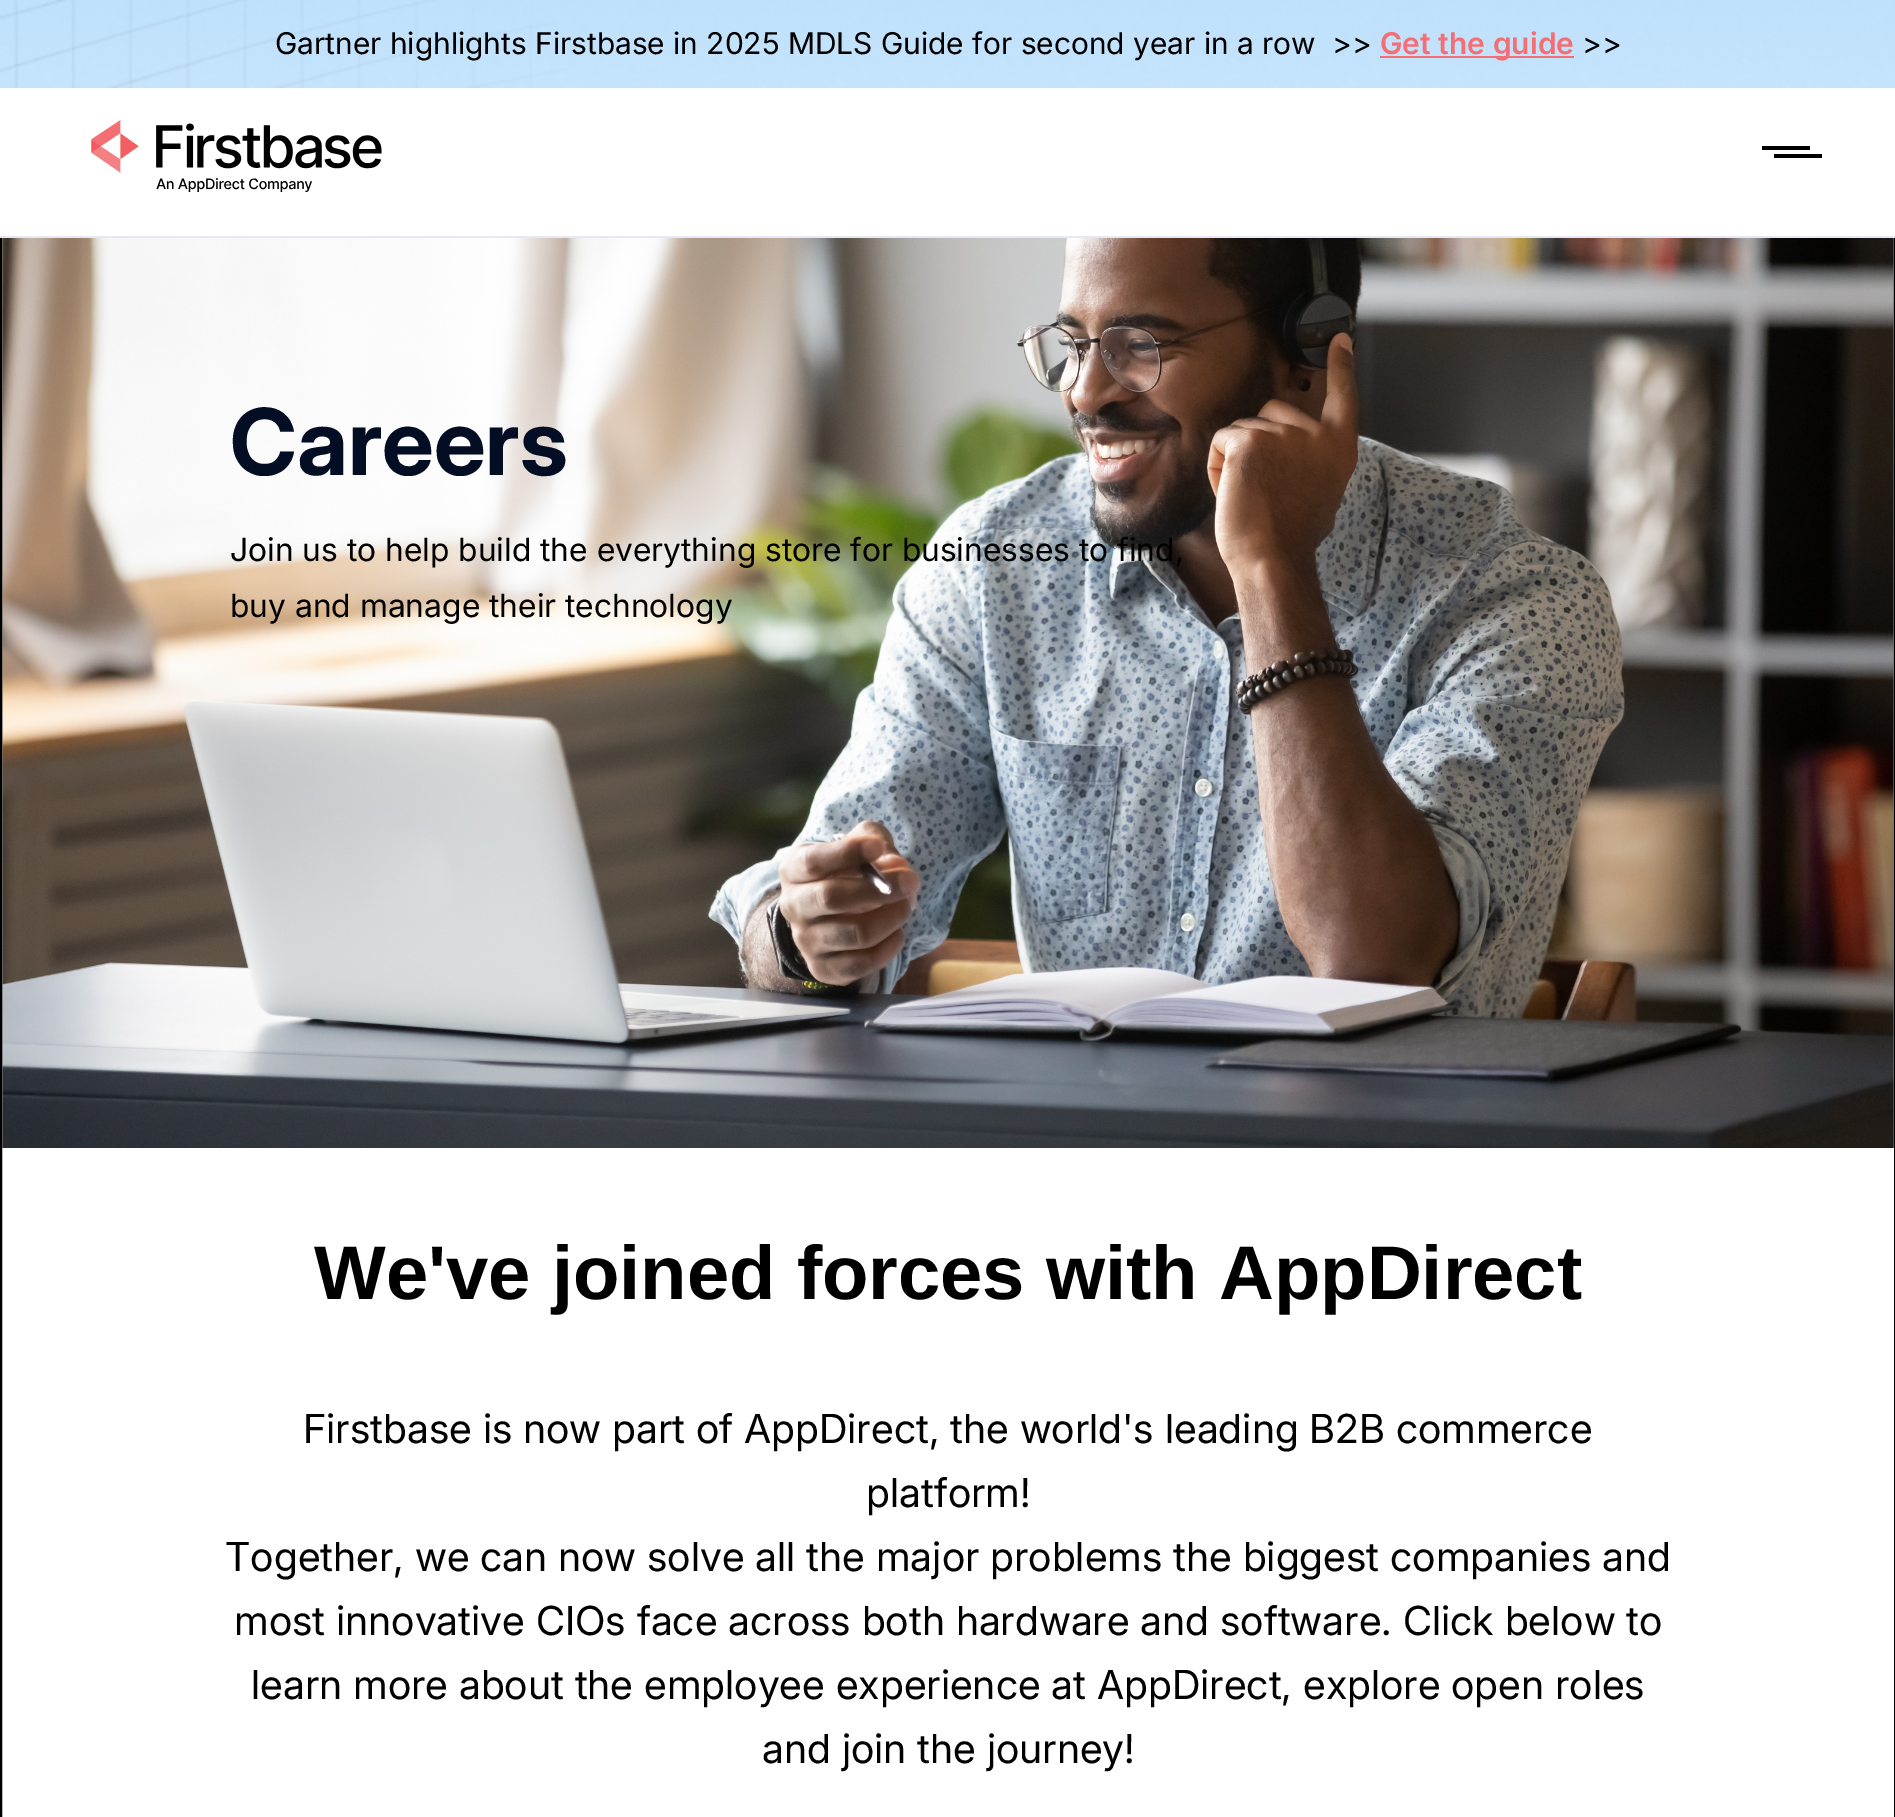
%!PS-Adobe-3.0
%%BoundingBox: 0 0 1895 1817
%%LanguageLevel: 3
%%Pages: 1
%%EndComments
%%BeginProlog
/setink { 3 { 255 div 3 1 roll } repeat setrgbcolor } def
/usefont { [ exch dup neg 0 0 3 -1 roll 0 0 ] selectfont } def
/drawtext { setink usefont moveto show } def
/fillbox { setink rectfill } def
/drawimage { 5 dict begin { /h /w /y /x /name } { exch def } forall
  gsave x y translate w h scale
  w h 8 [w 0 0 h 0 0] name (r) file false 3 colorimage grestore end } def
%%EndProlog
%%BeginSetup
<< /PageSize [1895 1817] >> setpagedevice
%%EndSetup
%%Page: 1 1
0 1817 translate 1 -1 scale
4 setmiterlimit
0 0 1895 1817 255 255 255 fillbox
0 0 0 setink
2 setlinewidth
1 -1 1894 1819 rectstroke
(assets/img1.rgb) 0 0 1895 88 drawimage
(Gartner highlights Firstbase in 2025 MDLS Guide for second year in a row  >>) 275 54 /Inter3-Regular 30 0 0 0 drawtext
1380 56 194 2 244 110 115 fillbox
(Get the guide) 1380 54 /Inter-SemiBold 30 244 110 115 drawtext
(>>) 1582 54 /Inter3-Regular 30 0 0 0 drawtext
0 88 1895 148 255 255 255 fillbox
0 236 1895 2 230 233 245 fillbox
(assets/img2.rgb) 91 120 291 72 drawimage
1762 146 48 4 0 0 0 fillbox
1774 154 48 4 0 0 0 fillbox
(assets/img3.rgb) 2 238 1892 910 drawimage
(Careers) 230 475 /Inter-Bold 92 3 14 36 drawtext
(Join us to help build the everything store for businesses to find,) 230 561 /Inter-Regular 32 0 0 0 drawtext
(buy and manage their technology) 230 617 /Inter-Regular 32 0 0 0 drawtext
(We've joined forces with AppDirect) 314 1299 /LiberationSans-Bold 76 0 0 0 drawtext
(Firstbase is now part of AppDirect, the world's leading B2B commerce) 303 1443 /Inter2-Regular 40 0 0 0 drawtext
(platform!) 866 1507 /Inter2-Regular 40 0 0 0 drawtext
(Together, we can now solve all the major problems the biggest companies and) 225 1571 /Inter2-Regular 40 0 0 0 drawtext
(most innovative CIOs face across both hardware and software. Click below to) 234 1635 /Inter2-Regular 40 0 0 0 drawtext
(learn more about the employee experience at AppDirect, explore open roles) 251 1699 /Inter2-Regular 40 0 0 0 drawtext
(and join the journey!) 762 1763 /Inter2-Regular 40 0 0 0 drawtext
showpage
%%EOF
